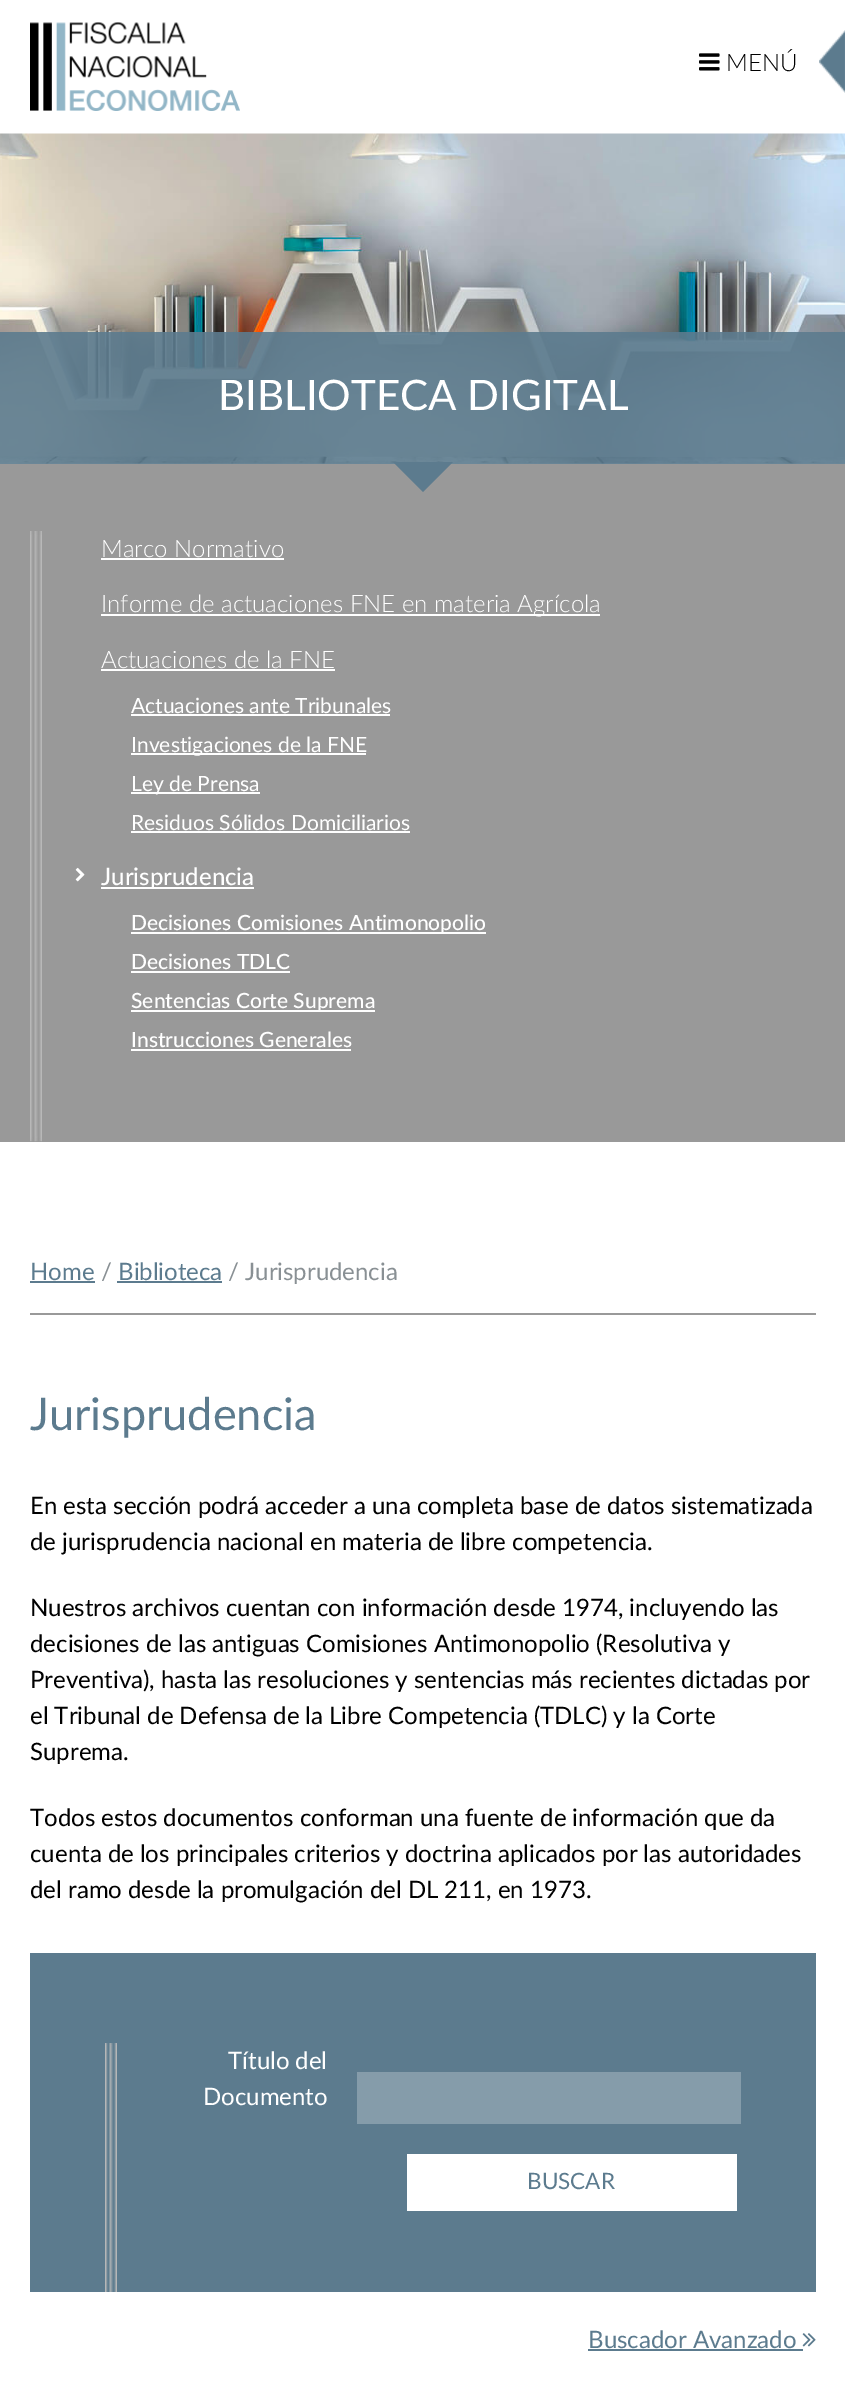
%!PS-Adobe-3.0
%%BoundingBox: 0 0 845 2388
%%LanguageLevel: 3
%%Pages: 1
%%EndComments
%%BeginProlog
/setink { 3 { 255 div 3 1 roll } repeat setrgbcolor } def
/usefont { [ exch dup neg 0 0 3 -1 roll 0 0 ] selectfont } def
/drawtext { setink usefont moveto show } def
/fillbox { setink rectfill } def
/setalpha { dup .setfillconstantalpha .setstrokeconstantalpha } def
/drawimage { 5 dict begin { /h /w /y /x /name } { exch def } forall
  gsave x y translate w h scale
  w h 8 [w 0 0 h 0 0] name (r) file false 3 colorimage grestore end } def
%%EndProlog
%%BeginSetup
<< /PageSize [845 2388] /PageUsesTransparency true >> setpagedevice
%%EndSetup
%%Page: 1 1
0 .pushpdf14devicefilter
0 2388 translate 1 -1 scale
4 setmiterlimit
0 0 845 2388 255 255 255 fillbox
(assets/img1.rgb) 30 22 210 89 drawimage
(assets/img2.rgb) 699 53 21 18 drawimage
(MENÚ) 726 71 /Lato-Light 24 0 0 0 drawtext
(assets/img3.rgb) 819 30 26 63 drawimage
(assets/img4.rgb) 0 133 845 331 drawimage
0.9 setalpha
0 332 845 132 92 123 142 fillbox
1 setalpha
(BIBLIOTECA DIGITAL) 218 410 /Lato-Regular 42 255 255 255 drawtext
0 464 845 678 153 153 153 fillbox
92 123 142 setink
393 462 moveto 453 462 lineto 423 492 lineto closepath fill
(assets/img5.rgb) 30 531 12 611 drawimage
(Marco Normativo) 101 557 /Lato-Light 24 255 255 255 drawtext
101 558 183 2 255 255 255 fillbox
101 614 499 2 255 255 255 fillbox
(Informe de actuaciones FNE en materia Agrícola) 101 612 /Lato-Light 24 255 255 255 drawtext
(Actuaciones de la FNE) 101 668 /Lato-Light 24 255 255 255 drawtext
101 669 234 2 255 255 255 fillbox
(Actuaciones ante Tribunales) 131 713 /Lato-Regular 21 255 255 255 drawtext
131 714 259 2 255 255 255 fillbox
131 753 235 2 255 255 255 fillbox
(Investigaciones de la FNE) 131 752 /Lato-Regular 21 255 255 255 drawtext
131 792 129 2 255 255 255 fillbox
(Ley de Prensa) 131 791 /Lato-Regular 21 255 255 255 drawtext
(Residuos Sólidos Domiciliarios) 131 830 /Lato-Regular 21 255 255 255 drawtext
131 831 279 2 255 255 255 fillbox
(assets/img6.rgb) 75 867 10 15 drawimage
101 887 153 2 255 255 255 fillbox
(Jurisprudencia) 101 885 /Lato-Medium 24 255 255 255 drawtext
131 932 355 2 255 255 255 fillbox
(Decisiones Comisiones Antimonopolio) 131 930 /Lato-Medium 21 255 255 255 drawtext
(Decisiones TDLC) 131 969 /Lato-Medium 21 255 255 255 drawtext
131 971 159 2 255 255 255 fillbox
131 1010 244 2 255 255 255 fillbox
(Sentencias Corte Suprema) 131 1008 /Lato-Medium 21 255 255 255 drawtext
(Instrucciones Generales) 131 1047 /Lato-Medium 21 255 255 255 drawtext
131 1049 220 2 255 255 255 fillbox
30 1313 786 2 153 153 153 fillbox
(Home) 30 1280 /Lato-Regular 24 92 123 142 drawtext
30 1281 65 2 92 123 142 fillbox
(/) 101 1280 /Lato-Regular 24 137 144 148 drawtext
(Biblioteca) 118 1280 /Lato-Regular 24 92 123 142 drawtext
117 1281 105 2 92 123 142 fillbox
(/ Jurisprudencia) 228 1280 /Lato-Regular 24 137 144 148 drawtext
(Jurisprudencia) 30 1430 /Lato-Regular 45 92 123 142 drawtext
(En esta sección podrá acceder a una completa base de datos sistematizada) 30 1514 /Lato-Regular 24 0 0 0 drawtext
(de jurisprudencia nacional en materia de libre competencia.) 30 1550 /Lato-Regular 24 0 0 0 drawtext
(Nuestros archivos cuentan con información desde 1974, incluyendo las) 30 1616 /Lato-Regular 24 0 0 0 drawtext
(decisiones de las antiguas Comisiones Antimonopolio \(Resolutiva y) 30 1652 /Lato-Regular 24 0 0 0 drawtext
(Preventiva\), hasta las resoluciones y sentencias más recientes dictadas por) 30 1688 /Lato-Regular 24 0 0 0 drawtext
(el Tribunal de Defensa de la Libre Competencia \(TDLC\) y la Corte) 30 1724 /Lato-Regular 24 0 0 0 drawtext
(Suprema.) 30 1760 /Lato-Regular 24 0 0 0 drawtext
(Todos estos documentos conforman una fuente de información que da) 30 1826 /Lato-Regular 24 0 0 0 drawtext
(cuenta de los principales criterios y doctrina aplicados por las autoridades) 30 1862 /Lato-Regular 24 0 0 0 drawtext
(del ramo desde la promulgación del DL 211, en 1973.) 30 1898 /Lato-Regular 24 0 0 0 drawtext
30 1953 786 339 92 123 142 fillbox
(assets/img7.rgb) 105 2043 12 249 drawimage
(Título del) 228 2069 /Lato-Regular 24 255 255 255 drawtext
(Documento) 203 2105 /Lato-Regular 24 255 255 255 drawtext
357 2072 384 52 133 156 170 fillbox
407 2154 330 57 255 255 255 fillbox
(BUSCAR) 527 2189 /Lato-Regular 22.5 92 123 142 drawtext
(Buscador Avanzado) 588 2348 /Lato-Regular 24 92 123 142 drawtext
588 2349 215 2 92 123 142 fillbox
(assets/img8.rgb) 802 2333 14 14 drawimage
.poppdf14devicefilter showpage
%%EOF
